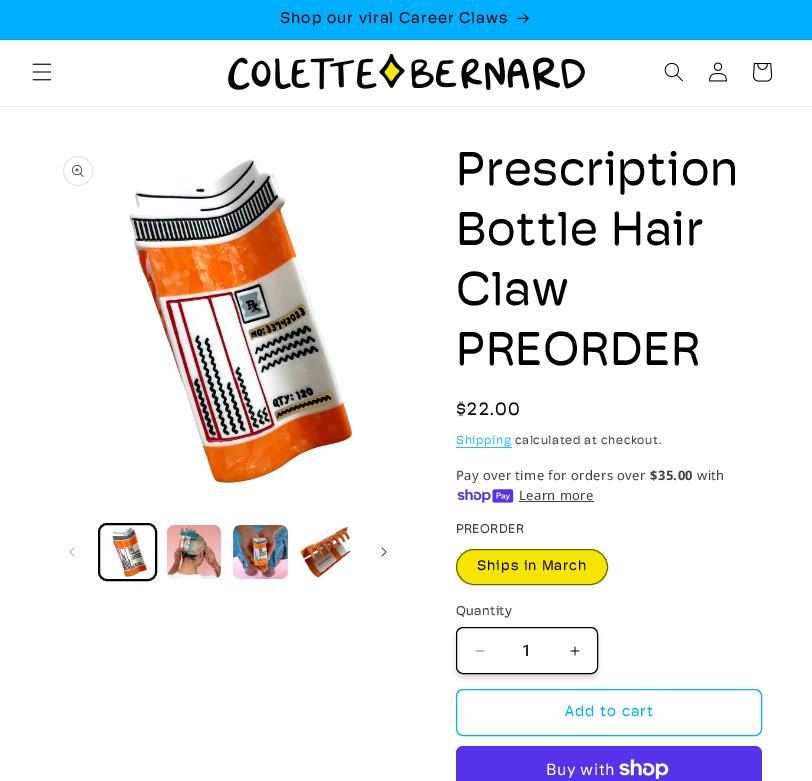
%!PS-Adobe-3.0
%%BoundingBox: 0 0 812 781
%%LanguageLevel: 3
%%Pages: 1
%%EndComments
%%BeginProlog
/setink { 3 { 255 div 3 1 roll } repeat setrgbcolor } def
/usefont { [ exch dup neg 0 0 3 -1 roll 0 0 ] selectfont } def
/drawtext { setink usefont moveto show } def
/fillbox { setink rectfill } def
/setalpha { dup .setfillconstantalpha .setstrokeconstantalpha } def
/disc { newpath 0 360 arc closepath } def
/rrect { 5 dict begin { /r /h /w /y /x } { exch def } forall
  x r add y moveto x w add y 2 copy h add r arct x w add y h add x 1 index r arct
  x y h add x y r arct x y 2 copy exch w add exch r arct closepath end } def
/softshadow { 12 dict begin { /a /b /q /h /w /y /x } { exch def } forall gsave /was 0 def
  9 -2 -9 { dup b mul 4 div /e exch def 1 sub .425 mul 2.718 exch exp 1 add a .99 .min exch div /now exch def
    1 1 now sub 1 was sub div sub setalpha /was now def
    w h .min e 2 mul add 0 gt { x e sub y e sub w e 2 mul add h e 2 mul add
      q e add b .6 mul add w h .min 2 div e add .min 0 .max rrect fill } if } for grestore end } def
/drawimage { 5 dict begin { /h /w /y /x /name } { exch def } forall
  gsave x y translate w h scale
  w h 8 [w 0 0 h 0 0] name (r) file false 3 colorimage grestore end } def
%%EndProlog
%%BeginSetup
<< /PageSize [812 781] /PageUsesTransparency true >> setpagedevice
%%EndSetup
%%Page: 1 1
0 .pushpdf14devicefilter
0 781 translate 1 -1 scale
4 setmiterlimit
0 0 812 781 255 255 255 fillbox
0 0 812 39 0 175 255 fillbox
0 39 812 1 0 161 235 fillbox
/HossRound-Regular 15.6 usefont
0 0 0 setink
280 23 moveto 1 0 (Shop our viral Career Claws) ashow
(assets/img1.rgb) 517 13 12 10 drawimage
0 106 812 1 235 235 235 fillbox
(assets/img2.rgb) 32 63 20 18 drawimage
(assets/img3.rgb) 228 54 357 36 drawimage
(assets/img4.rgb) 664 62 19 20 drawimage
(assets/img5.rgb) 709 62 18 20 drawimage
(assets/img6.rgb) 753 63 20 19 drawimage
230 230 230 setink
78 171 14.5 disc stroke
(assets/img7.rgb) 72 165 12 12 drawimage
(assets/img8.rgb) 129 159 223 324 drawimage
(assets/img9.rgb) 69 547 6 10 drawimage
0 0 0 setink
98.5 523.5 58 57 8.5 rrect stroke
99.5 524.5 56 55 7.5 rrect stroke
(assets/img10.rgb) 112 527 35 50 drawimage
(assets/img11.rgb) 167 525 54 54 drawimage
(assets/img12.rgb) 233 525 55 54 drawimage
(assets/img13.rgb) 300 526 51 52 drawimage
(assets/img14.rgb) 381 547 6 10 drawimage
/HossRound-Regular 48 usefont
456 185 moveto 0.75 0 (Prescription) ashow
456 245 moveto 0.75 0 (Bottle Hair) ashow
456 305 moveto 0.75 0 (Claw) ashow
456 365 moveto 0.75 0 (PREORDER) ashow
/HossRound-Regular 18 usefont
456 415 moveto 1.25 0 ($22.00) ashow
/HossRound-Regular 12 usefont
38 187 255 setink
456 444 moveto 0.7 0 (Shipping) ashow
456 447 56 1 38 187 255 fillbox
64 64 64 setink
515 444 moveto 0.7 0 (calculated at checkout.) ashow
/NotoSans-Regular 13 usefont
456 480 moveto 0.4 0 (Pay over time for orders over) ashow
/NotoSans-Bold 13 usefont
650 480 moveto 0.4 0 ($35.00) ashow
/NotoSans-Regular 13 usefont
697 480 moveto 0.4 0 (with) ashow
(assets/img15.rgb) 457 489 57 14 drawimage
519 500 moveto 0.4 0 (Learn more) ashow
519 501 75 1 64 64 64 fillbox
/HossRound-Regular 13 usefont
456 533 moveto 0.4 0 (PREORDER) ashow
246 229 0 setink
456 549 152 36 18 rrect fill
0.55 setalpha
0 0 0 setink
456.5 549.5 151 35 17.5 rrect stroke
/HossRound-Regular 14 usefont
1 setalpha
477 570 moveto 1 0 (Ships in March) ashow
/HossRound-Regular 13 usefont
64 64 64 setink
456 615 moveto 0.4 0 (Quantity) ashow
0 0 0 setink
456 631 142 47 7 2.5 0.15 softshadow
255 255 255 setink
456 627 142 47 7 rrect fill
(assets/img16.rgb) 475 650 10 2 drawimage
(assets/img17.rgb) 570 646 10 10 drawimage
0 0 0 setink
456.5 627.5 141 46 6.5 rrect stroke
(1) 522 656 /Roboto-Medium 16 38 38 38 drawtext
0 175 255 setink
456.5 689.5 305 46 6.5 rrect stroke
/HossRound-Regular 15 usefont
565 716 moveto 1 0 (Add to cart) ashow
84 51 235 setink
456 746 306 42 7 rrect fill
/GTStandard-Regular 16 usefont
255 255 255 setink
546 775 moveto 0.5 0 (Buy with) ashow
(assets/img18.rgb) 619 759 50 20 drawimage
.poppdf14devicefilter showpage
%%EOF
